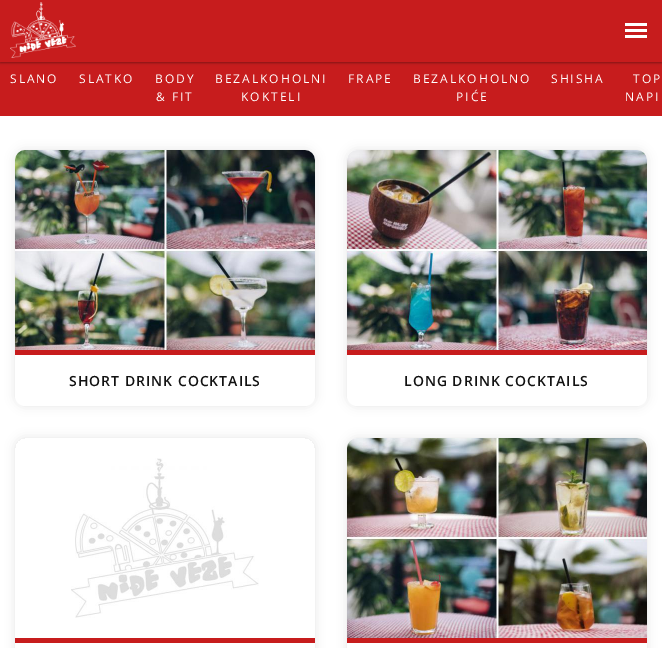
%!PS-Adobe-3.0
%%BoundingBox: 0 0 662 648
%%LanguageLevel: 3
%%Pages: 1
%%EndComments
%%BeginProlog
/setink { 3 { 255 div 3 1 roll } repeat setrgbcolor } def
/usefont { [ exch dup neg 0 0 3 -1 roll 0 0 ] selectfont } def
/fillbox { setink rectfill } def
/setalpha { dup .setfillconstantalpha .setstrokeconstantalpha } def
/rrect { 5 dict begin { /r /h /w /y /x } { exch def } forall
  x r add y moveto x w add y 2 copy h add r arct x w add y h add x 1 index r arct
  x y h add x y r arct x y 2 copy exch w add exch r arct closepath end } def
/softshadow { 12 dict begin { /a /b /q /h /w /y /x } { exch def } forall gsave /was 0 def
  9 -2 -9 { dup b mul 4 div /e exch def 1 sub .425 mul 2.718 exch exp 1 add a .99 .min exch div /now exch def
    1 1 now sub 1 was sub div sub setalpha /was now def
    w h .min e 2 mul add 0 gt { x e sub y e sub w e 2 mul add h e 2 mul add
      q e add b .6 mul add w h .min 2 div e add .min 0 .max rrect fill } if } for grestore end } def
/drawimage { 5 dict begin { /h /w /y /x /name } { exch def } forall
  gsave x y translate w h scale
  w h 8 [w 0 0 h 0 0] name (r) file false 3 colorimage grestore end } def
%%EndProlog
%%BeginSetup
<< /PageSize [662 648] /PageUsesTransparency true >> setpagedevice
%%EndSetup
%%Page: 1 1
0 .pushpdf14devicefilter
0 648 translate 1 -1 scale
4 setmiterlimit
0 0 662 648 255 255 255 fillbox
0 62 662 54 199 28 29 fillbox
0 0 0 setink
0 1 662 62 0 1 0.24 softshadow
0 1 662 62 0 1.5 0.14 softshadow
0 0 662 62 199 28 29 fillbox
625 23 22 3 255 255 255 fillbox
625 29 22 3 255 255 255 fillbox
625 35 22 3 255 255 255 fillbox
(assets/img1.rgb) 10 2 66 56 drawimage
/OpenSans-Regular 12 usefont
10 83 moveto 2 0 (SLANO) ashow
79 83 moveto 2 0 (SLATKO) ashow
155 83 moveto 2 0 (BODY) ashow
156 101 moveto 2 0 (& FIT) ashow
215 83 moveto 2 0 (BEZALKOHOLNI) ashow
241 101 moveto 2 0 (KOKTELI) ashow
348 83 moveto 2 0 (FRAPE) ashow
413 83 moveto 2 0 (BEZALKOHOLNO) ashow
456 101 moveto 2 0 (PIĆE) ashow
551 83 moveto 2 0 (SHISHA) ashow
633 83 moveto 2 0 (TOP) ashow
625 101 moveto 2 0 (NAPI) ashow
0 0 0 setink
15 150 300 256 10 5 0.1 softshadow
(assets/img2.rgb) 15 150 300 200 drawimage
15 350 300 5 199 28 29 fillbox
255 255 255 setink
15 355 moveto 315 355 lineto 315 396 lineto 315 401.5 310.5 406 305 406 curveto 25 406 lineto 19.5 406 15 401.5 15 396 curveto closepath fill
/OpenSans-SemiBold 14 usefont
18 18 18 setink
69 386 moveto 1 0 (SHORT DRINK COCKTAILS) ashow
0 0 0 setink
347 150 300 256 10 5 0.1 softshadow
(assets/img3.rgb) 347 150 300 200 drawimage
347 350 300 5 199 28 29 fillbox
255 255 255 setink
347 355 moveto 647 355 lineto 647 396 lineto 647 401.5 642.5 406 637 406 curveto 357 406 lineto 351.5 406 347 401.5 347 396 curveto closepath fill
18 18 18 setink
404 386 moveto 1 0 (LONG DRINK COCKTAILS) ashow
gsave
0 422 moveto 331 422 lineto 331 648 lineto 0 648 lineto closepath 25 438 moveto 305 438 lineto 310.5 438 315 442.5 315 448 curveto 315 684 lineto 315 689.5 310.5 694 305 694 curveto 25 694 lineto 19.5 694 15 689.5 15 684 curveto 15 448 lineto 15 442.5 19.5 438 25 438 curveto closepath eoclip newpath
0 0 0 setink
15 438 300 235 10 5 0.1 softshadow
grestore
(assets/img4.rgb) 71 458 188 160 drawimage
15 638 300 5 199 28 29 fillbox
gsave
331 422 moveto 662 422 lineto 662 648 lineto 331 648 lineto closepath 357 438 moveto 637 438 lineto 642.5 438 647 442.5 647 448 curveto 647 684 lineto 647 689.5 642.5 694 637 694 curveto 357 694 lineto 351.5 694 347 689.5 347 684 curveto 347 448 lineto 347 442.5 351.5 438 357 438 curveto closepath eoclip newpath
0 0 0 setink
347 438 300 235 10 5 0.1 softshadow
grestore
(assets/img5.rgb) 347 438 300 200 drawimage
347 638 300 5 199 28 29 fillbox
.poppdf14devicefilter showpage
%%EOF
